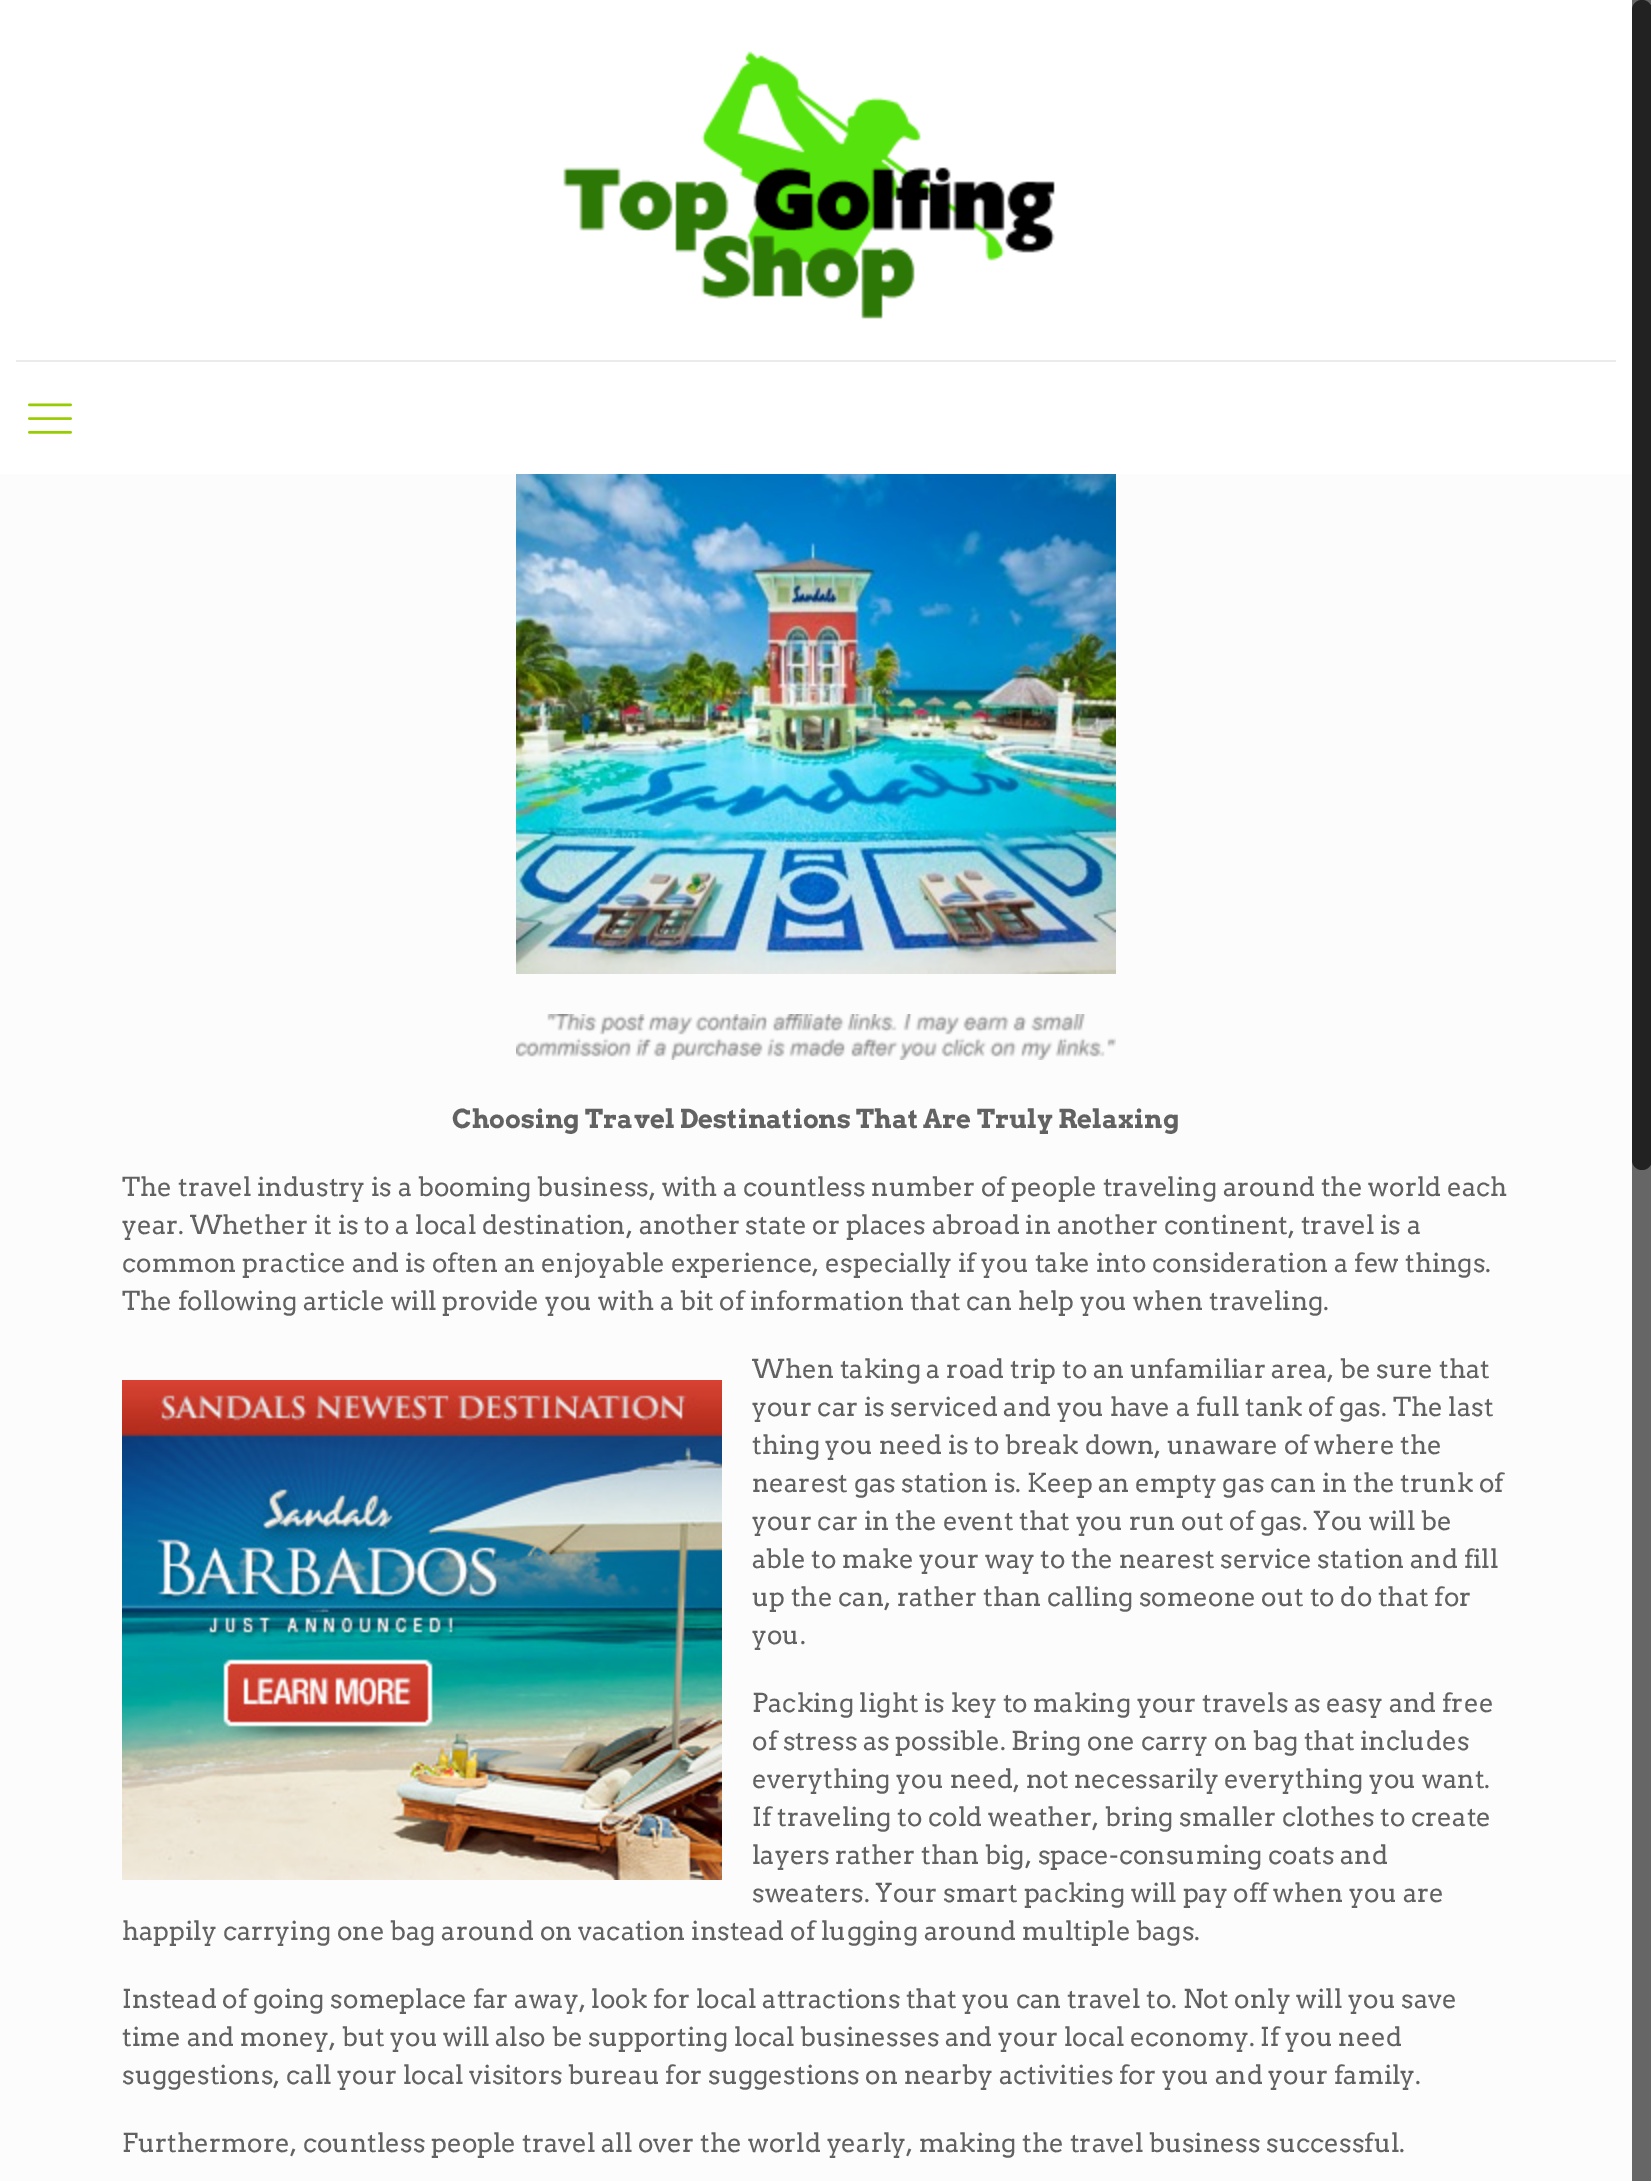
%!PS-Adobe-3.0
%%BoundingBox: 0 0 1651 2181
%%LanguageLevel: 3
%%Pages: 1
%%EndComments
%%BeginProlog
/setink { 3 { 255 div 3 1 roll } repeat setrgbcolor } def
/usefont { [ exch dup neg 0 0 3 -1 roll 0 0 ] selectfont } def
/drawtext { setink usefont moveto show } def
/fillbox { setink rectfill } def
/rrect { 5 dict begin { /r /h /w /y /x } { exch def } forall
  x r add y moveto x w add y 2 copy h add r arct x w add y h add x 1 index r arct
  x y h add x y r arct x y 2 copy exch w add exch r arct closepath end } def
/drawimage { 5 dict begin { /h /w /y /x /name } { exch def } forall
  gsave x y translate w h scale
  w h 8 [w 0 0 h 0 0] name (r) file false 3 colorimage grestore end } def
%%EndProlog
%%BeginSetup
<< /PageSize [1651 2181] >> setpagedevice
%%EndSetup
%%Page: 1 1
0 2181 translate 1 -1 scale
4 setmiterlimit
0 0 1651 2181 252 252 252 fillbox
0 0 1632 474 255 255 255 fillbox
16 360 1600 2 235 235 235 fillbox
(assets/img1.rgb) 563 51 492 268 drawimage
(assets/img2.rgb) 28 403 44 31 drawimage
(assets/img3.rgb) 516 474 600 500 drawimage
(assets/img4.rgb) 516 1014 600 46 drawimage
(Choosing Travel Destinations That Are Truly Relaxing) 452 1128 /Arvo-Bold 26 98 98 98 drawtext
(The travel industry is a booming business, with a countless number of people traveling around the world each) 122 1196 /Arvo-Regular 26 98 98 98 drawtext
(year. Whether it is to a local destination, another state or places abroad in another continent, travel is a) 122 1234 /Arvo-Regular 26 98 98 98 drawtext
(common practice and is often an enjoyable experience, especially if you take into consideration a few things.) 122 1272 /Arvo-Regular 26 98 98 98 drawtext
(The following article will provide you with a bit of information that can help you when traveling.) 122 1310 /Arvo-Regular 26 98 98 98 drawtext
(When taking a road trip to an unfamiliar area, be sure that) 752 1378 /Arvo-Regular 26 98 98 98 drawtext
(assets/img5.rgb) 122 1380 600 500 drawimage
(your car is serviced and you have a full tank of gas. The last) 752 1416 /Arvo-Regular 26 98 98 98 drawtext
(thing you need is to break down, unaware of where the) 752 1454 /Arvo-Regular 26 98 98 98 drawtext
(nearest gas station is. Keep an empty gas can in the trunk of) 752 1492 /Arvo-Regular 26 98 98 98 drawtext
(your car in the event that you run out of gas. You will be) 752 1530 /Arvo-Regular 26 98 98 98 drawtext
(able to make your way to the nearest service station and fill) 752 1568 /Arvo-Regular 26 98 98 98 drawtext
(up the can, rather than calling someone out to do that for) 752 1606 /Arvo-Regular 26 98 98 98 drawtext
(you.) 752 1644 /Arvo-Regular 26 98 98 98 drawtext
(Packing light is key to making your travels as easy and free) 752 1712 /Arvo-Regular 26 98 98 98 drawtext
(of stress as possible. Bring one carry on bag that includes) 752 1750 /Arvo-Regular 26 98 98 98 drawtext
(everything you need, not necessarily everything you want.) 752 1788 /Arvo-Regular 26 98 98 98 drawtext
(If traveling to cold weather, bring smaller clothes to create) 752 1826 /Arvo-Regular 26 98 98 98 drawtext
(layers rather than big, space-consuming coats and) 752 1864 /Arvo-Regular 26 98 98 98 drawtext
(sweaters. Your smart packing will pay off when you are) 752 1902 /Arvo-Regular 26 98 98 98 drawtext
(happily carrying one bag around on vacation instead of lugging around multiple bags.) 122 1940 /Arvo-Regular 26 98 98 98 drawtext
(Instead of going someplace far away, look for local attractions that you can travel to. Not only will you save) 122 2008 /Arvo-Regular 26 98 98 98 drawtext
(time and money, but you will also be supporting local businesses and your local economy. If you need) 122 2046 /Arvo-Regular 26 98 98 98 drawtext
(suggestions, call your local visitors bureau for suggestions on nearby activities for you and your family.) 122 2084 /Arvo-Regular 26 98 98 98 drawtext
(Furthermore, countless people travel all over the world yearly, making the travel business successful.) 122 2152 /Arvo-Regular 26 98 98 98 drawtext
1632 0 19 2181 102 102 102 fillbox
34 34 34 setink
1632 0 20 1170 10 rrect fill
showpage
%%EOF
